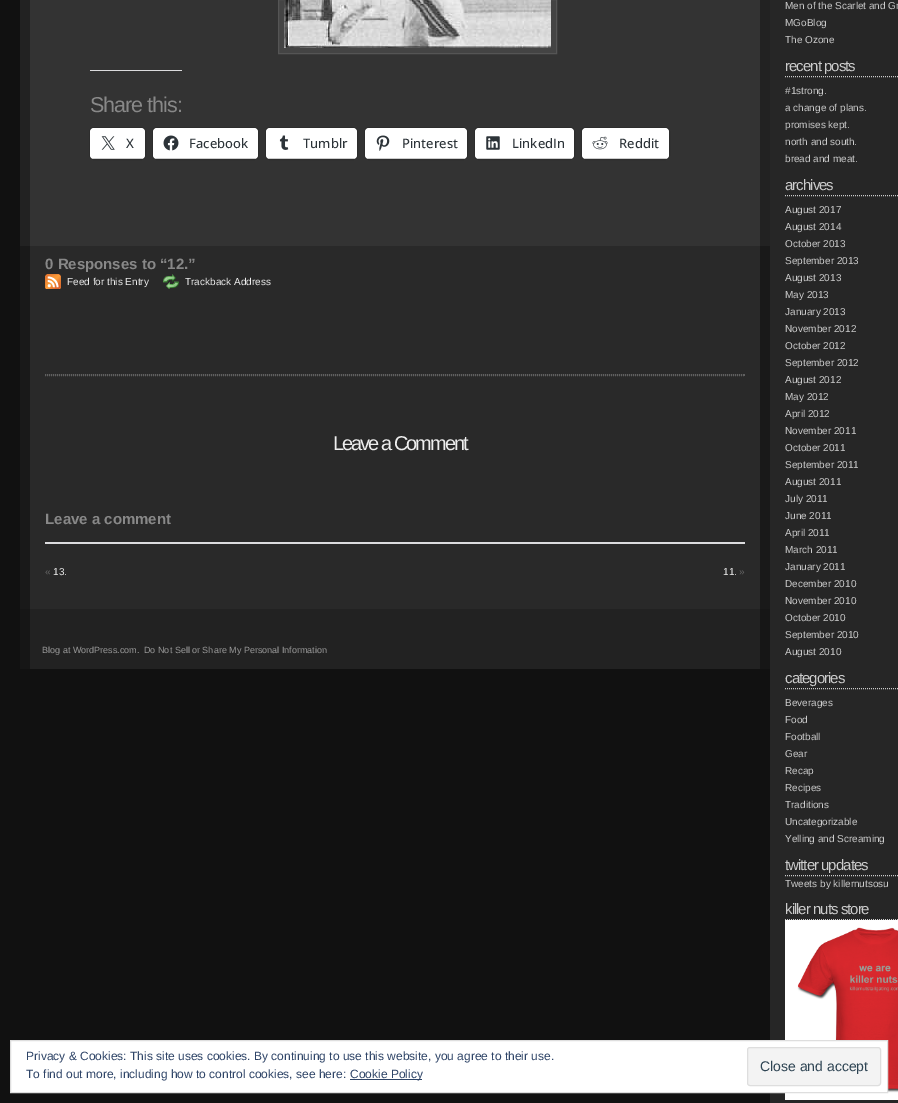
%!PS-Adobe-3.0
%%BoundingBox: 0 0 898 1103
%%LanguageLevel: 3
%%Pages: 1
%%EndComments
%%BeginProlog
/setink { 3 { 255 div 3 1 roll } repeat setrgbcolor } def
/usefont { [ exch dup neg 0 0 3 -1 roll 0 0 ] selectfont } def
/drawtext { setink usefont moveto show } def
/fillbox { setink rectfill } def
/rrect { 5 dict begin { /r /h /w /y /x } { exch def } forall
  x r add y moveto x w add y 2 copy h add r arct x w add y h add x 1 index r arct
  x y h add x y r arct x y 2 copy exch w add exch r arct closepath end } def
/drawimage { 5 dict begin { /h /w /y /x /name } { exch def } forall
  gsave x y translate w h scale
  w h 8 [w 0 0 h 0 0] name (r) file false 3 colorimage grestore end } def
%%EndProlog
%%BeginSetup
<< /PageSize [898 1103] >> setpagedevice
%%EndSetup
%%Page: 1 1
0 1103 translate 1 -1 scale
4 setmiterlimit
0 0 898 1103 17 17 17 fillbox
30 0 730 246 51 51 51 fillbox
760 0 10 246 34 34 34 fillbox
20 0 10 246 34 34 34 fillbox
68 68 68 setink
278.5 -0.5 moveto 556.5 -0.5 lineto 556.5 53.5 lineto 278.5 53.5 lineto closepath gsave fill grestore
85 85 85 setink
stroke
(assets/img1.rgb) 284 0 267 48 drawimage
90 70 92 1 220 220 222 fillbox
/LiberationSans-Regular 21.5 usefont
136 136 136 setink
90 112 moveto -1 0 (Share this:) ashow
45 45 45 setink
89.5 127.5 56 32 4.5 rrect stroke
255 255 255 setink
90 128 55 31 4 rrect fill
92 158 51 1 204 204 204 fillbox
(assets/img2.rgb) 101 136 14 14 drawimage
(X) 126 148 /OpenSans-Medium 13 44 51 56 drawtext
45 45 45 setink
152.5 127.5 106 32 4.5 rrect stroke
255 255 255 setink
153 128 105 31 4 rrect fill
155 158 101 1 204 204 204 fillbox
(assets/img3.rgb) 163 135 16 16 drawimage
(Facebook) 189 148 /OpenSans-Medium 13 44 51 56 drawtext
45 45 45 setink
265.5 127.5 92 32 4.5 rrect stroke
255 255 255 setink
266 128 91 31 4 rrect fill
268 158 87 1 204 204 204 fillbox
(assets/img4.rgb) 279 135 10 15 drawimage
(Tumblr) 303 148 /OpenSans-Medium 13 44 51 56 drawtext
45 45 45 setink
364.5 127.5 103 32 4.5 rrect stroke
255 255 255 setink
365 128 102 31 4 rrect fill
367 158 98 1 204 204 204 fillbox
(assets/img5.rgb) 376 135 14 16 drawimage
(Pinterest) 402 148 /OpenSans-Medium 13 44 51 56 drawtext
45 45 45 setink
474.5 127.5 100 32 4.5 rrect stroke
255 255 255 setink
475 128 99 31 4 rrect fill
477 158 95 1 204 204 204 fillbox
(assets/img6.rgb) 486 136 14 14 drawimage
(LinkedIn) 512 148 /OpenSans-Medium 13 44 51 56 drawtext
45 45 45 setink
581.5 127.5 88 32 4.5 rrect stroke
255 255 255 setink
582 128 87 31 4 rrect fill
584 158 83 1 204 204 204 fillbox
(assets/img7.rgb) 592 136 16 14 drawimage
(Reddit) 619 148 /OpenSans-Medium 13 44 51 56 drawtext
770 0 128 1103 38 38 38 fillbox
(Men of the Scarlet and Gr) 785 9 /LiberationSans-Regular 10 204 204 204 drawtext
(MGoBlog) 785 26 /LiberationSans-Regular 10 204 204 204 drawtext
(The Ozone) 785 43 /LiberationSans-Regular 10 204 204 204 drawtext
[1 1] 0 setdash
785 76.5 moveto 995 76.5 lineto stroke
/LiberationSans-Regular 15 usefont
785 71 moveto -1 0 (recent posts) ashow
(#1strong.) 785 94 /LiberationSans-Regular 10 204 204 204 drawtext
(a change of plans.) 785 111 /LiberationSans-Regular 10 204 204 204 drawtext
(promises kept.) 785 128 /LiberationSans-Regular 10 204 204 204 drawtext
(north and south.) 785 145 /LiberationSans-Regular 10 204 204 204 drawtext
(bread and meat.) 785 162 /LiberationSans-Regular 10 204 204 204 drawtext
785 195.5 moveto 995 195.5 lineto stroke
/LiberationSans-Regular 15 usefont
785 190 moveto -1 0 (archives) ashow
(August 2017) 785 213 /LiberationSans-Regular 10 204 204 204 drawtext
(August 2014) 785 230 /LiberationSans-Regular 10 204 204 204 drawtext
(October 2013) 785 247 /LiberationSans-Regular 10 204 204 204 drawtext
(September 2013) 785 264 /LiberationSans-Regular 10 204 204 204 drawtext
(August 2013) 785 281 /LiberationSans-Regular 10 204 204 204 drawtext
(May 2013) 785 298 /LiberationSans-Regular 10 204 204 204 drawtext
(January 2013) 785 315 /LiberationSans-Regular 10 204 204 204 drawtext
(November 2012) 785 332 /LiberationSans-Regular 10 204 204 204 drawtext
(October 2012) 785 349 /LiberationSans-Regular 10 204 204 204 drawtext
(September 2012) 785 366 /LiberationSans-Regular 10 204 204 204 drawtext
(August 2012) 785 383 /LiberationSans-Regular 10 204 204 204 drawtext
(May 2012) 785 400 /LiberationSans-Regular 10 204 204 204 drawtext
(April 2012) 785 417 /LiberationSans-Regular 10 204 204 204 drawtext
(November 2011) 785 434 /LiberationSans-Regular 10 204 204 204 drawtext
(October 2011) 785 451 /LiberationSans-Regular 10 204 204 204 drawtext
(September 2011) 785 468 /LiberationSans-Regular 10 204 204 204 drawtext
(August 2011) 785 485 /LiberationSans-Regular 10 204 204 204 drawtext
(July 2011) 785 502 /LiberationSans-Regular 10 204 204 204 drawtext
(June 2011) 785 519 /LiberationSans-Regular 10 204 204 204 drawtext
(April 2011) 785 536 /LiberationSans-Regular 10 204 204 204 drawtext
(March 2011) 785 553 /LiberationSans-Regular 10 204 204 204 drawtext
(January 2011) 785 570 /LiberationSans-Regular 10 204 204 204 drawtext
(December 2010) 785 587 /LiberationSans-Regular 10 204 204 204 drawtext
(November 2010) 785 604 /LiberationSans-Regular 10 204 204 204 drawtext
(October 2010) 785 621 /LiberationSans-Regular 10 204 204 204 drawtext
(September 2010) 785 638 /LiberationSans-Regular 10 204 204 204 drawtext
(August 2010) 785 655 /LiberationSans-Regular 10 204 204 204 drawtext
785 688.5 moveto 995 688.5 lineto stroke
/LiberationSans-Regular 15 usefont
785 683 moveto -1 0 (categories) ashow
(Beverages) 785 706 /LiberationSans-Regular 10 204 204 204 drawtext
(Food) 785 723 /LiberationSans-Regular 10 204 204 204 drawtext
(Football) 785 740 /LiberationSans-Regular 10 204 204 204 drawtext
(Gear) 785 757 /LiberationSans-Regular 10 204 204 204 drawtext
(Recap) 785 774 /LiberationSans-Regular 10 204 204 204 drawtext
(Recipes) 785 791 /LiberationSans-Regular 10 204 204 204 drawtext
(Traditions) 785 808 /LiberationSans-Regular 10 204 204 204 drawtext
(Uncategorizable) 785 825 /LiberationSans-Regular 10 204 204 204 drawtext
(Yelling and Screaming) 785 842 /LiberationSans-Regular 10 204 204 204 drawtext
785 875.5 moveto 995 875.5 lineto stroke
/LiberationSans-Regular 15 usefont
785 870 moveto -1 0 (twitter updates) ashow
(Tweets by killernutsosu) 785 887 /LiberationSans-Regular 10 204 204 204 drawtext
785 919.5 moveto 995 919.5 lineto stroke
/LiberationSans-Regular 15 usefont
785 914 moveto -1 0 (killer nuts store) ashow
(assets/img8.rgb) 785 920 113 180 drawimage
30 246 730 363 41 41 41 fillbox
760 246 10 363 25 25 25 fillbox
20 246 10 363 25 25 25 fillbox
(0 Responses to “12.”) 45 269 /LiberationSans-Bold 15 136 136 136 drawtext
(assets/img9.rgb) 45 274 16 15 drawimage
(Feed for this Entry) 67 285 /LiberationSans-Regular 10 238 238 238 drawtext
(assets/img10.rgb) 163 274 16 15 drawimage
(Trackback Address) 185 285 /LiberationSans-Regular 10 238 238 238 drawtext
45 374 700 2 54 54 54 fillbox
96 96 96 setink
45 374.5 moveto 745 374.5 lineto stroke
744 374 1 2 96 96 96 fillbox
45 375.5 moveto 745 375.5 lineto stroke
/LiberationSans-Regular 20 usefont
238 238 238 setink
333 450 moveto -2 0 (Leave a Comment) ashow
(Leave a comment) 45 524 /LiberationSans-Bold 15 136 136 136 drawtext
45 542 700 2 220 220 222 fillbox
(«) 45 575 /LiberationSans-Regular 10 102 102 102 drawtext
(13.) 53 575 /LiberationSans-Regular 10 238 238 238 drawtext
(11.) 723 575 /LiberationSans-Regular 10 238 238 238 drawtext
(») 739 575 /LiberationSans-Regular 10 102 102 102 drawtext
30 609 730 60 34 34 34 fillbox
760 609 10 60 22 22 22 fillbox
20 609 10 60 22 22 22 fillbox
(Blog at WordPress.com.) 42 653 /LiberationSans-Regular 9 153 153 153 drawtext
(Do Not Sell or Share My Personal Information) 144 653 /LiberationSans-Regular 9 153 153 153 drawtext
255 255 255 setink
10.5 1040.5 moveto 887.5 1040.5 lineto 887.5 1092.5 lineto 10.5 1092.5 lineto closepath gsave fill grestore
222 222 222 setink
[] 0 setdash
stroke
(Privacy & Cookies: This site uses cookies. By continuing to use this website, you agree to their use.) 26 1060 /LiberationSans-Regular 12 46 68 103 drawtext
(To find out more, including how to control cookies, see here:) 26 1078 /LiberationSans-Regular 12 46 68 103 drawtext
350 1079 72 1 46 68 103 fillbox
(Cookie Policy) 350 1078 /LiberationSans-Regular 12 46 68 103 drawtext
243 243 243 setink
747.5 1047.5 133 38 2.5 rrect gsave fill grestore
222 222 222 setink
stroke
(Close and accept) 760 1071 /LiberationSans-Regular 14 46 68 83 drawtext
showpage
%%EOF
